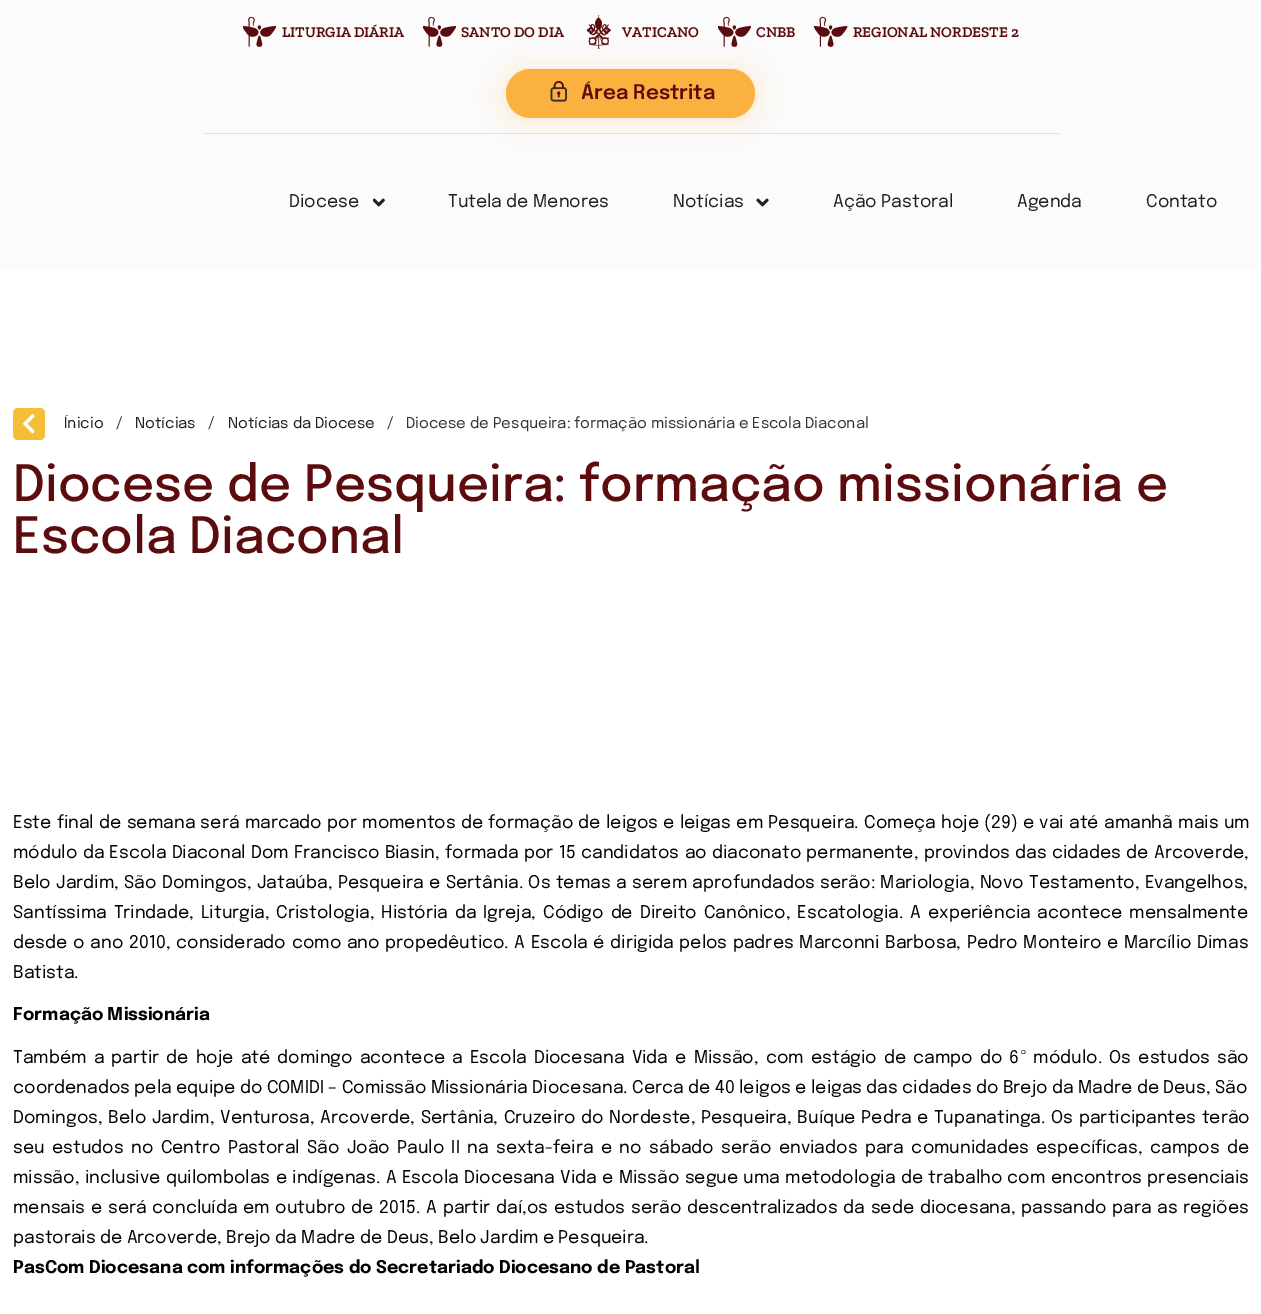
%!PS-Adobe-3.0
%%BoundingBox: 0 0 1261 1314
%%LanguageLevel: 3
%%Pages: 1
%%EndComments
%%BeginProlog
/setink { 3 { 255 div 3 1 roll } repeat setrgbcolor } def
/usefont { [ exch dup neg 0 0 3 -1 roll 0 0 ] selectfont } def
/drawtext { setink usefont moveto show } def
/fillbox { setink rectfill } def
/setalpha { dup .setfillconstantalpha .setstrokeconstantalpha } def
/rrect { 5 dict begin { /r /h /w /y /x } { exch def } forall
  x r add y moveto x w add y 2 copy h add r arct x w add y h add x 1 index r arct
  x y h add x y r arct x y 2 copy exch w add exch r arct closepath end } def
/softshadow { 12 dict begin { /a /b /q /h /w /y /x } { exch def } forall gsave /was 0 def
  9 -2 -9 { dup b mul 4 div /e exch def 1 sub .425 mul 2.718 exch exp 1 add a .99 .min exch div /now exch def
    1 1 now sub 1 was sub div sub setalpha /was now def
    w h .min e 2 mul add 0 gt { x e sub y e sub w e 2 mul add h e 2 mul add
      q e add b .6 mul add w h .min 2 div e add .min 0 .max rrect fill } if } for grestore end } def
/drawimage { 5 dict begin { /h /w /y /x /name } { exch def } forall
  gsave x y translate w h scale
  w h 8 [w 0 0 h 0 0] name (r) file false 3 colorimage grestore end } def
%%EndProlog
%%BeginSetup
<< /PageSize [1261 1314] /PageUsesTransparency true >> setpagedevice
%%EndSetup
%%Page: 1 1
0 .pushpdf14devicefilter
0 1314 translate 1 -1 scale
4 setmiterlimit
0 0 1261 1314 255 255 255 fillbox
0 0 1261 270 251 251 251 fillbox
203 133 856 1 224 224 224 fillbox
(assets/img1.rgb) 243 16 33 31 drawimage
(LITURGIA DIÁRIA) 282 37 /ZillaSlab-SemiBold 15 92 12 14 drawtext
(assets/img1.rgb) 423 16 33 31 drawimage
(SANTO DO DIA) 461 37 /ZillaSlab-SemiBold 15 92 12 14 drawtext
(assets/img2.rgb) 586 15 25 34 drawimage
(VATICANO) 622 37 /ZillaSlab-SemiBold 15 92 12 14 drawtext
(assets/img1.rgb) 718 16 33 31 drawimage
(CNBB) 756 37 /ZillaSlab-SemiBold 15 92 12 14 drawtext
(assets/img3.rgb) 814 16 34 31 drawimage
(REGIONAL NORDESTE 2) 853 37 /ZillaSlab-SemiBold 15 92 12 14 drawtext
251 177 63 setink
506 71 249 49 24.5 14 0.25 softshadow
506 69 249 49 24.5 rrect fill
(assets/img4.rgb) 550 80 17 22 drawimage
(Área Restrita) 581 99 /Epilogue-SemiBold 20 92 12 14 drawtext
(Diocese) 289 207 /Epilogue-Regular 17.5 32 32 32 drawtext
(assets/img5.rgb) 373 198 12 9 drawimage
(Tutela de Menores) 448 207 /Epilogue-Regular 17.5 32 32 32 drawtext
(Notícias) 673 207 /Epilogue-Regular 17.5 32 32 32 drawtext
(assets/img6.rgb) 756 198 13 9 drawimage
(Ação Pastoral) 833 207 /Epilogue-Regular 17.5 32 32 32 drawtext
(Agenda) 1017 207 /Epilogue-Regular 17.5 32 32 32 drawtext
(Contato) 1146 207 /Epilogue-Regular 17.5 32 32 32 drawtext
244 191 54 setink
13 408 32 32 5 rrect fill
(assets/img7.rgb) 22 414 13 20 drawimage
(Ínicio) 64 428 /Epilogue-Regular 15 32 32 32 drawtext
(/) 116 428 /Epilogue-Regular 15 51 51 51 drawtext
(Notícias) 135 428 /Epilogue-Regular 15 32 32 32 drawtext
(/) 208 428 /Epilogue-Regular 15 51 51 51 drawtext
(Notícias da Diocese) 228 428 /Epilogue-Regular 15 32 32 32 drawtext
(/) 387 428 /Epilogue-Regular 15 51 51 51 drawtext
(Diocese de Pesqueira: formação missionária e Escola Diaconal) 406 428 /Epilogue-Regular 15 51 51 51 drawtext
(Diocese de Pesqueira: formação missionária e) 13 501 /Epilogue-Medium 50 92 12 14 drawtext
(Escola Diaconal) 13 553 /Epilogue-Medium 50 92 12 14 drawtext
/Epilogue-Regular 17.5 usefont
0 0 0 setink
13 828 moveto 0.9 0 32 (Este final de semana será marcado por momentos de formação de leigos e leigas em Pesqueira. Começa hoje \(29\) e vai até amanhã mais um) widthshow
13 858 moveto 0.9 0 32 (módulo da Escola Diaconal Dom Francisco Biasin, formada por 15 candidatos ao diaconato permanente, provindos das cidades de Arcoverde,) widthshow
13 888 moveto 1 0 32 (Belo Jardim, São Domingos, Jataúba, Pesqueira e Sertânia. Os temas a serem aprofundados serão: Mariologia, Novo Testamento, Evangelhos,) widthshow
13 918 moveto 2.5 0 32 (Santíssima Trindade, Liturgia, Cristologia, História da Igreja, Código de Direito Canônico, Escatologia. A experiência acontece mensalmente) widthshow
13 948 moveto 1.25 0 32 (desde o ano 2010, considerado como ano propedêutico. A Escola é dirigida pelos padres Marconni Barbosa, Pedro Monteiro e Marcílio Dimas) widthshow
(Batista.) 13 978 /Epilogue-Regular 17.5 0 0 0 drawtext
(Formação Missionária) 13 1020 /Epilogue-Bold 17.5 0 0 0 drawtext
/Epilogue-Regular 17.5 usefont
13 1063 moveto 2.7 0 32 (Também a partir de hoje até domingo acontece a Escola Diocesana Vida e Missão, com estágio de campo do 6º módulo. Os estudos são) widthshow
(coordenados pela equipe do COMIDI – Comissão Missionária Diocesana. Cerca de 40 leigos e leigas das cidades do Brejo da Madre de Deus, São) 13 1093 /Epilogue-Regular 17.5 0 0 0 drawtext
13 1123 moveto 1.25 0 32 (Domingos, Belo Jardim, Venturosa, Arcoverde, Sertânia, Cruzeiro do Nordeste, Pesqueira, Buíque Pedra e Tupanatinga. Os participantes terão) widthshow
13 1153 moveto 3 0 32 (seu estudos no Centro Pastoral São João Paulo II na sexta-feira e no sábado serão enviados para comunidades específicas, campos de) widthshow
13 1183 moveto 1 0 32 (missão, inclusive quilombolas e indígenas. A Escola Diocesana Vida e Missão segue uma metodologia de trabalho com encontros presenciais) widthshow
13 1213 moveto 1.3 0 32 (mensais e será concluída em outubro de 2015. A partir daí,os estudos serão descentralizados da sede diocesana, passando para as regiões) widthshow
(pastorais de Arcoverde, Brejo da Madre de Deus, Belo Jardim e Pesqueira.) 13 1243 /Epilogue-Regular 17.5 0 0 0 drawtext
(PasCom Diocesana com informações do Secretariado Diocesano de Pastoral) 13 1273 /Epilogue-Bold 17.5 0 0 0 drawtext
.poppdf14devicefilter showpage
%%EOF
